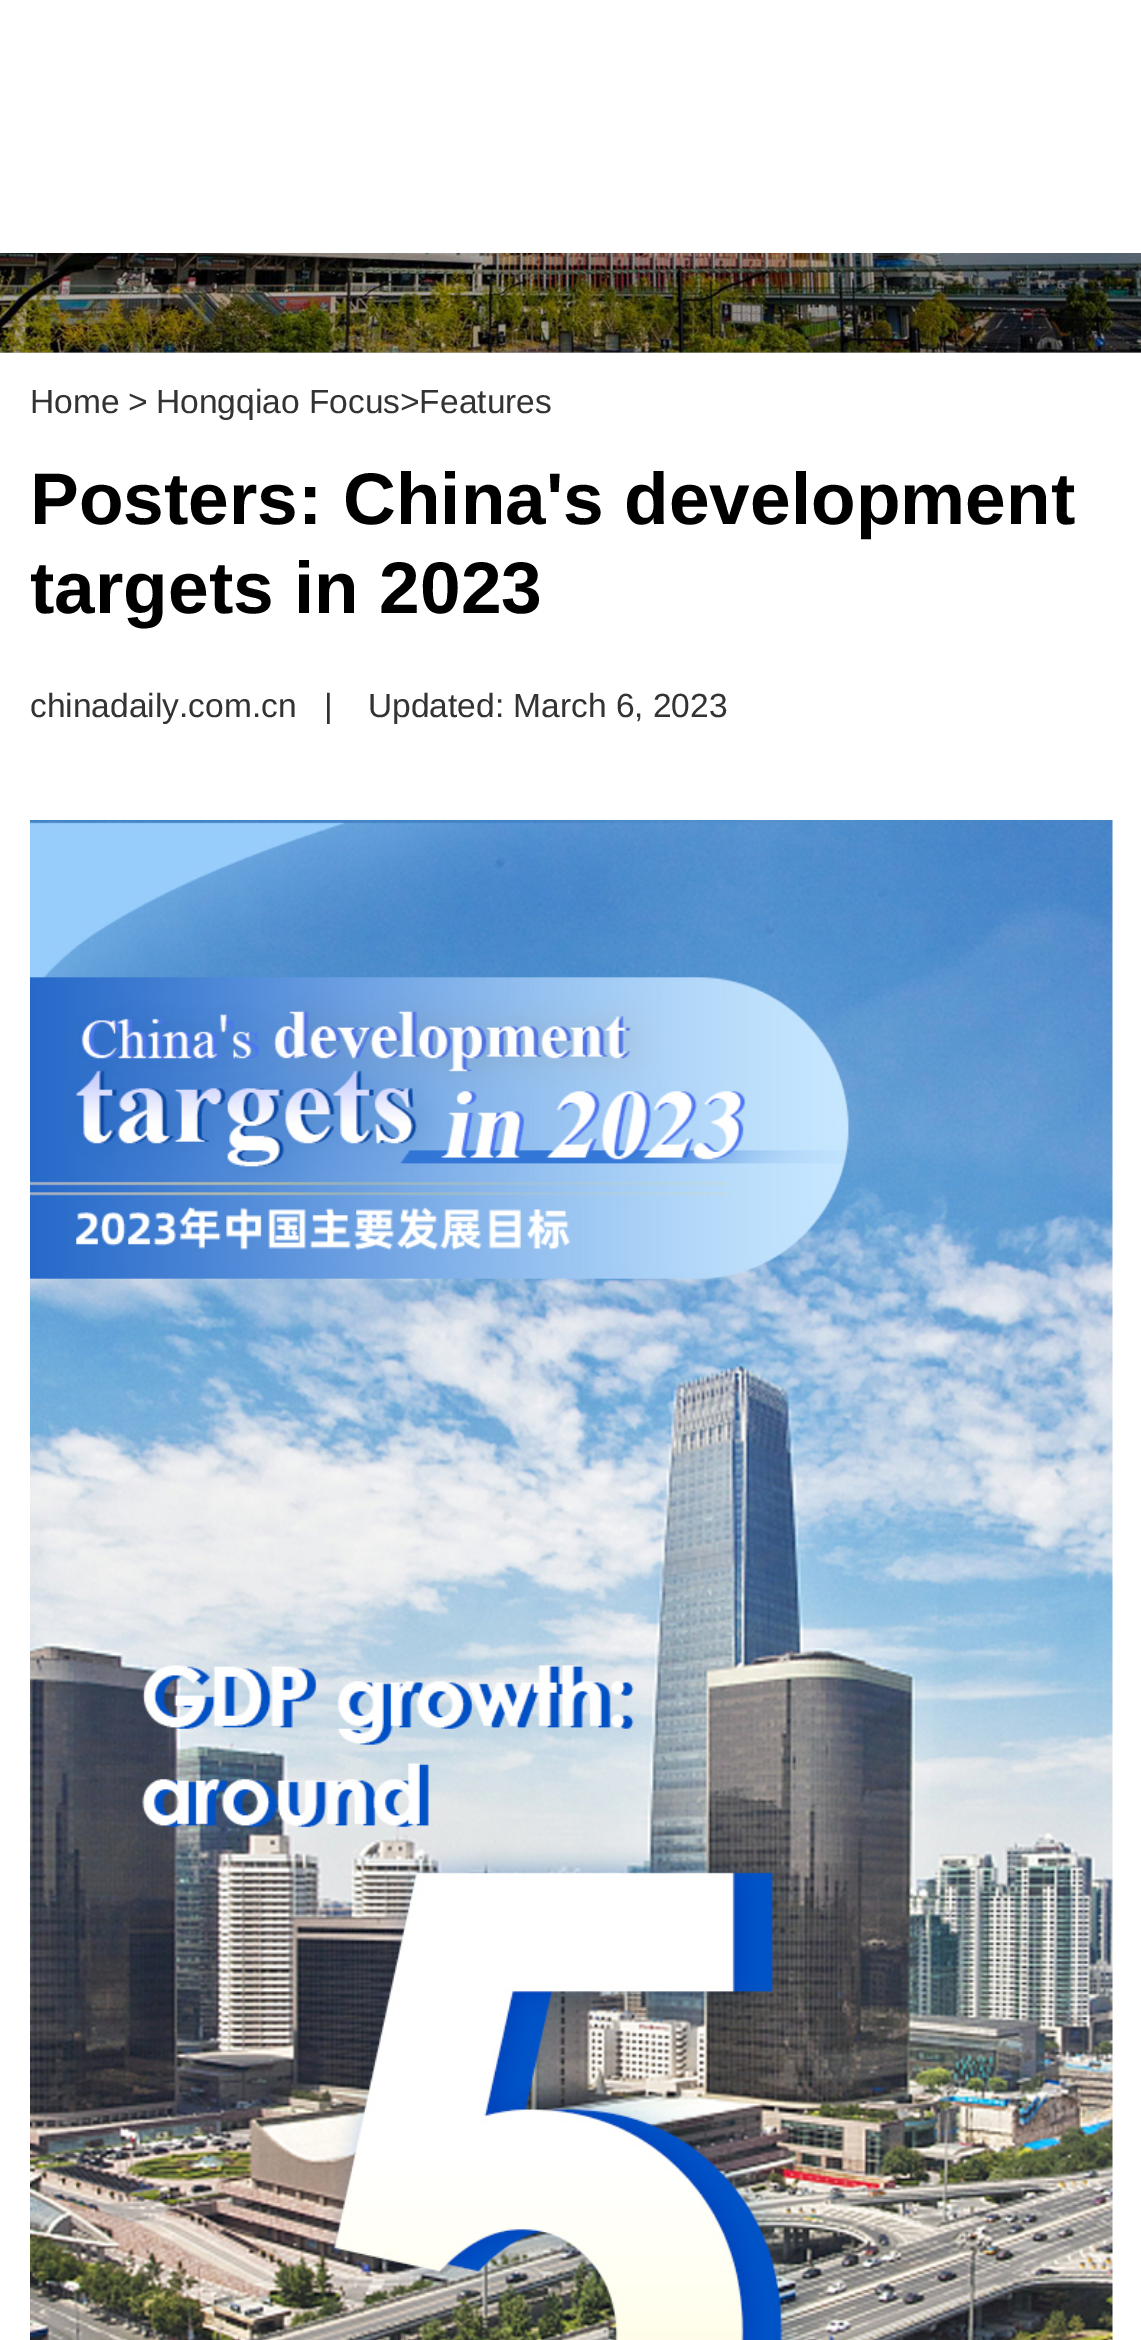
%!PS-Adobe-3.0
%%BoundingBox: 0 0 1141 2340
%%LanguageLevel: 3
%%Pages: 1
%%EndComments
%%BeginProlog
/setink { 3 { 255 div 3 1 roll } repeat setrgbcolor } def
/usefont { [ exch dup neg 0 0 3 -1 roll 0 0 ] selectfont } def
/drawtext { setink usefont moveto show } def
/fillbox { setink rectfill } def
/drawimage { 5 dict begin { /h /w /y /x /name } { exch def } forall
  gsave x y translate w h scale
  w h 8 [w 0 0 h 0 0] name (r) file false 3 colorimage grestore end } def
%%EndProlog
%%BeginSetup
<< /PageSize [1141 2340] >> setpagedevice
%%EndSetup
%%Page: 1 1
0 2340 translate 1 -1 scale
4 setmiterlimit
0 0 1141 2340 255 255 255 fillbox
0 352 1141 1 179 179 179 fillbox
(assets/img1.rgb) 0 253 1141 100 drawimage
(Home) 30 413 /LiberationSans-Regular 33.5 51 51 51 drawtext
(>) 128 413 /LiberationSans-Regular 33.5 51 51 51 drawtext
(Hongqiao Focus>Features) 156 413 /LiberationSans-Regular 33.5 51 51 51 drawtext
(Posters: China's development) 30 524 /LiberationSans-Bold 73.1 0 0 0 drawtext
(targets in 2023) 30 613 /LiberationSans-Bold 73.1 0 0 0 drawtext
(chinadaily.com.cn) 30 717 /LiberationSans-Regular 33.5 51 51 51 drawtext
(|) 324 717 /LiberationSans-Regular 33.5 51 51 51 drawtext
(Updated: March 6, 2023) 368 717 /LiberationSans-Regular 33.5 51 51 51 drawtext
(assets/img2.rgb) 30 820 1083 1520 drawimage
showpage
%%EOF
